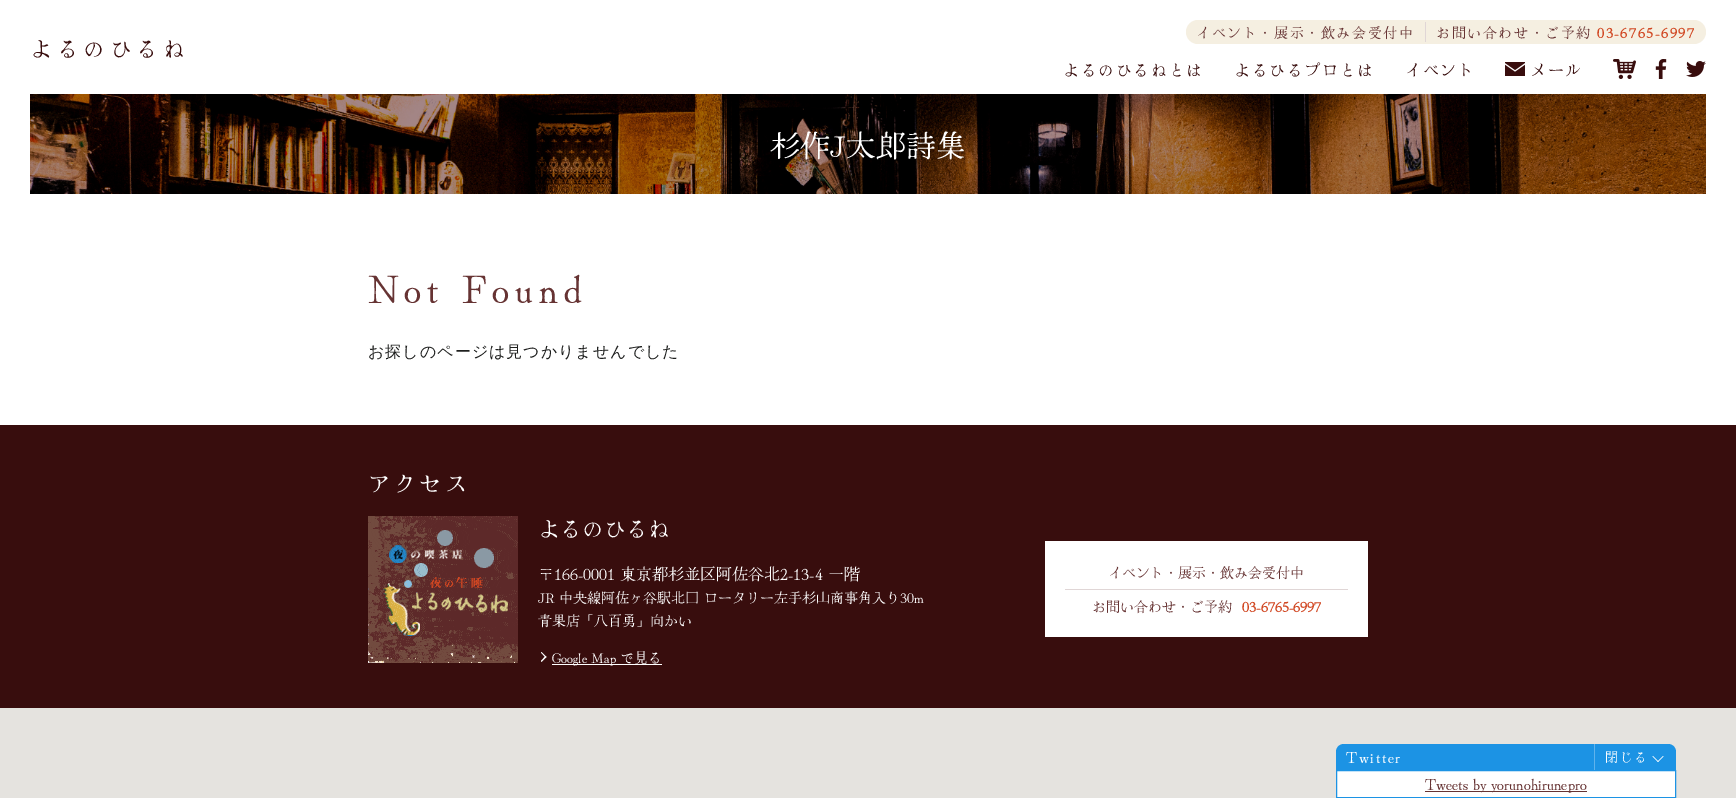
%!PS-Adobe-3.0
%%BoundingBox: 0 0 1736 798
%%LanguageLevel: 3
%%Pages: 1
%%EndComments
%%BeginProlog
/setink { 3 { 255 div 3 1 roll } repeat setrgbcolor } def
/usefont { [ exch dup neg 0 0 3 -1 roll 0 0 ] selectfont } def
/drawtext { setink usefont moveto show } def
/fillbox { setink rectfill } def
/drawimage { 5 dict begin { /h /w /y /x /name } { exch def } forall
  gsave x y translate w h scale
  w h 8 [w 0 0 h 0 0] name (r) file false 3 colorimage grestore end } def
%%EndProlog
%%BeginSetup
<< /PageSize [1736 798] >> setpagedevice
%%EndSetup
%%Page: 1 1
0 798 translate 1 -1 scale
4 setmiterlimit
0 0 1736 798 255 255 255 fillbox
/HinaMincho-Regular 22 usefont
56 13 13 setink
30 57 moveto 4.5 0 (よるのひるね) ashow
245 239 225 setink
1198 20 moveto 1425 20 lineto 1425 44 lineto 1198 44 lineto 1191.5 44 1186 38.5 1186 32 curveto 1186 25.5 1191.5 20 1198 20 curveto closepath fill
/HinaMincho-Regular 14 usefont
102 51 51 setink
1196 38 moveto 1.6 0 (イベント・展示・飲み会受付中) ashow
245 239 225 setink
1425 20 moveto 1694 20 lineto 1700.5 20 1706 25.5 1706 32 curveto 1706 38.5 1700.5 44 1694 44 curveto 1425 44 lineto closepath fill
102 51 51 setink
1436 38 moveto 1.6 0 (お問い合わせ・ご予約) ashow
1425 22 1 20 224 214 214 fillbox
/HinaMincho-Bold 14 usefont
209 71 34 setink
1597 38 moveto 1.6 0 (03-6765-6997) ashow
/HinaMincho-Regular 16 usefont
56 13 13 setink
1063 76 moveto 1.6 0 (よるのひるねとは) ashow
1234 76 moveto 1.6 0 (よるひるプロとは) ashow
1405 76 moveto 1.6 0 (イベント) ashow
(assets/img1.rgb) 1505 62 20 14 drawimage
1530 76 moveto 1.6 0 (メール) ashow
(assets/img2.rgb) 1613 59 23 20 drawimage
(assets/img3.rgb) 1655 59 12 20 drawimage
(assets/img4.rgb) 1686 61 20 16 drawimage
(assets/img5.rgb) 30 94 1676 100 drawimage
(杉作J太郎詩集) 770 157 /HinaMincho-Regular 30 255 255 255 drawtext
/HinaMincho-Regular 40 usefont
102 51 51 setink
368 303 moveto 6 0 (Not Found) ashow
/WenQuanYiZenHei-Medium 16 usefont
30 31 30 setink
368 357 moveto 1 0 (お探しのページは見つかりませんでした) ashow
0 425 1736 283 56 13 13 fillbox
/HinaMincho-Regular 22 usefont
255 255 255 setink
368 492 moveto 3.5 0 (アクセス) ashow
(assets/img6.rgb) 368 516 150 147 drawimage
(よるのひるね) 538 537 /HinaMincho-Regular 22 255 255 255 drawtext
(〒166-0001 東京都杉並区阿佐谷北2-13-4 一階) 538 580 /HinaMincho-Regular 16 255 255 255 drawtext
(JR 中央線阿佐ヶ谷駅北口 ロータリー左手杉山商事角入り30m) 538 603 /HinaMincho-Regular 14 255 255 255 drawtext
(青果店「八百勇」向かい) 538 626 /HinaMincho-Regular 14 255 255 255 drawtext
541.5 652 moveto 546.5 657 lineto 545.5 657.5 lineto 541 652.5 lineto closepath fill
545.5 656 moveto 546.5 657 lineto 541.5 662 lineto 541 661 lineto closepath fill
552 664 110 1 255 255 255 fillbox
(Google Map で見る) 552 663 /HinaMincho-Regular 14 255 255 255 drawtext
1045 541 323 96 255 255 255 fillbox
1065 589 283 1 224 214 214 fillbox
(イベント・展示・飲み会受付中) 1108 578 /HinaMincho-Regular 14 102 51 51 drawtext
(お問い合わせ・ご予約) 1092 612 /HinaMincho-Regular 14 102 51 51 drawtext
(03-6765-6997) 1242 612 /HinaMincho-Bold 14 209 71 34 drawtext
0 708 1736 90 229 227 223 fillbox
28 147 228 setink
1344 744 moveto 1668 744 lineto 1672.5 744 1676 747.5 1676 752 curveto 1676 770 lineto 1336 770 lineto 1336 752 lineto 1336 747.5 1339.5 744 1344 744 curveto closepath fill
/HinaMincho-Regular 16 usefont
255 255 255 setink
1346 763 moveto 1.6 0 (Twitter) ashow
1594 744 1 26 96 179 236 fillbox
/HinaMincho-Regular 13 usefont
255 255 255 setink
1605 762 moveto 1.6 0 (閉じる) ashow
1663.5 756.5 moveto 1658 762 lineto 1657.5 761.5 lineto 1663 756 lineto closepath fill
1658.5 761.5 moveto 1658 762 lineto 1652.5 756.5 lineto 1653 756 lineto closepath fill
1336.5 770.5 moveto 1675.5 770.5 lineto 1675.5 797.5 lineto 1336.5 797.5 lineto closepath gsave fill grestore
28 147 228 setink
stroke
1425 791 162 1 102 51 51 fillbox
(Tweets by yorunohirunepro) 1425 790 /HinaMincho-Regular 16 102 51 51 drawtext
showpage
%%EOF
